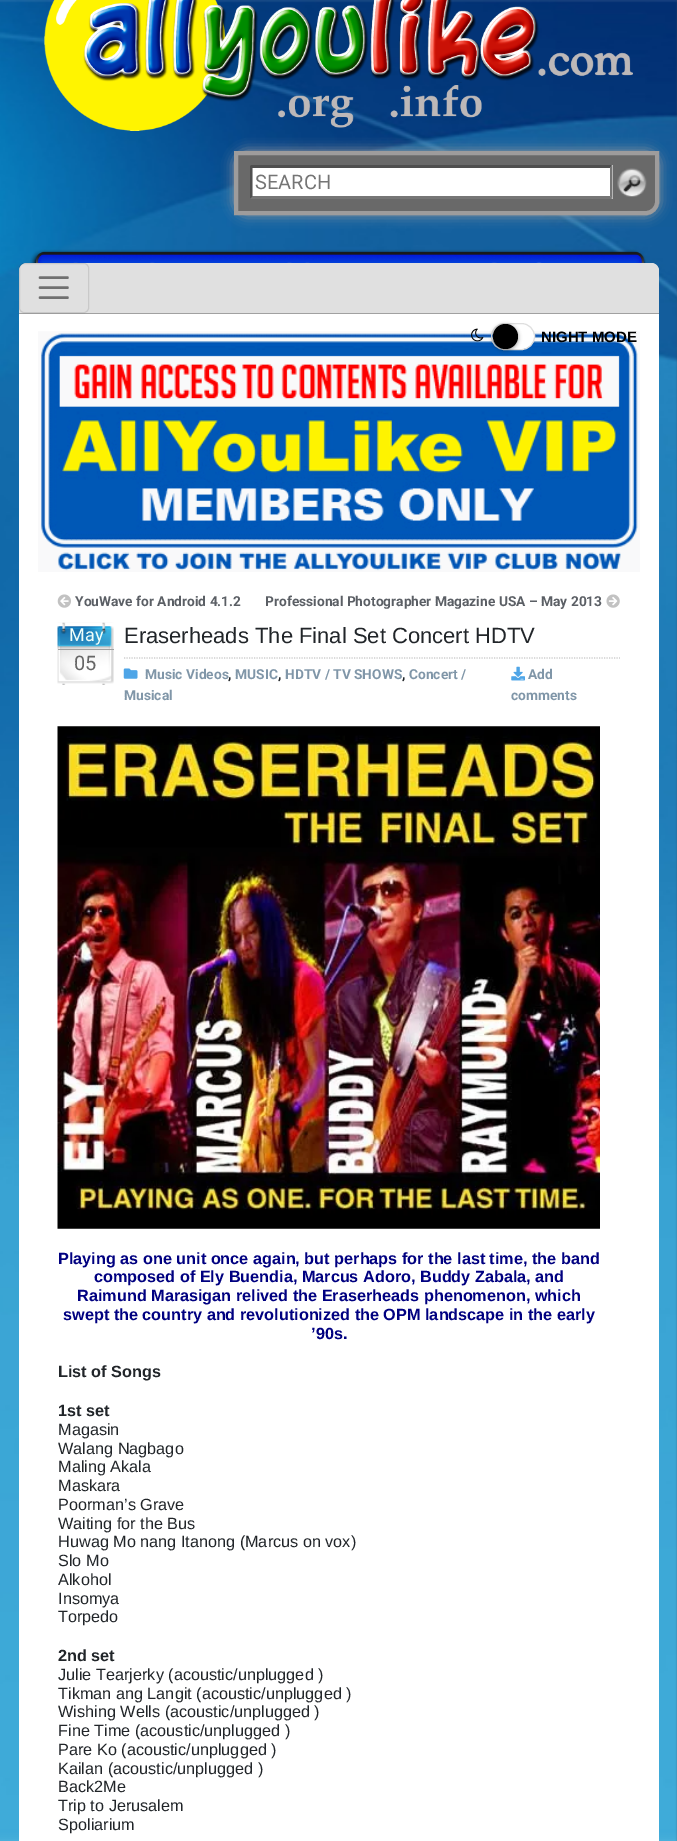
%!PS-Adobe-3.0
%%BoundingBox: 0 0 677 1841
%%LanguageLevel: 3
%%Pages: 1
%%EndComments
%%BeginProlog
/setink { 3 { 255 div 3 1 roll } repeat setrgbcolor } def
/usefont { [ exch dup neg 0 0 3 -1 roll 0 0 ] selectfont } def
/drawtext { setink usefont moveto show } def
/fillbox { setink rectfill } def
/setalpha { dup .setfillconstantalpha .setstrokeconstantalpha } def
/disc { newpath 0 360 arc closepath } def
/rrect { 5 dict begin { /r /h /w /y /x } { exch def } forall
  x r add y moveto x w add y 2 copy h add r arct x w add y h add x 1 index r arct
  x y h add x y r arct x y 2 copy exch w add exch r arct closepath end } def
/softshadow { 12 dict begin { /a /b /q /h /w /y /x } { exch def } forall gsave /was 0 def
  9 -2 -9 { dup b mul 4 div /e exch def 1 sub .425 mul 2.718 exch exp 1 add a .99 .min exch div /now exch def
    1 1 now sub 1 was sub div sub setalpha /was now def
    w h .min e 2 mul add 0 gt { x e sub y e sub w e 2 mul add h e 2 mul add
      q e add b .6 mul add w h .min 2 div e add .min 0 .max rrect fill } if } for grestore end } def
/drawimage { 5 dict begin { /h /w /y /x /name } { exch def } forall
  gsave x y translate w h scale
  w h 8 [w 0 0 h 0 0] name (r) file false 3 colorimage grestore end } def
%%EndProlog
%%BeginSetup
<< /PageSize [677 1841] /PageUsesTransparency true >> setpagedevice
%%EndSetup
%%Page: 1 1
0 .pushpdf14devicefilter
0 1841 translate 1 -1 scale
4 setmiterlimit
0 0 677 1841 255 255 255 fillbox
(assets/img1.rgb) 0 0 677 1841 drawimage
(assets/img2.rgb) 44 0 589 131 drawimage
158 156 156 setink
234 151 425 64 13 6 1 softshadow
105 105 105 setink
236 153 moveto 657 153 lineto 657 202 lineto 657 208 652 213 646 213 curveto 236 213 lineto closepath gsave fill grestore
158 156 156 setink
4 setlinewidth
stroke
250 165 363 34 255 255 255 fillbox
79 79 79 setink
250 165 moveto 612 165 lineto 610 168 lineto 252 168 lineto closepath fill
118 118 118 setink
612.5 165 moveto 612.5 199 lineto 610 196 lineto 610 167.5 lineto closepath fill
612 199 moveto 250 199 lineto 252 196 lineto 610 196 lineto closepath fill
79 79 79 setink
250 199 moveto 250 165 lineto 252.5 167.5 lineto 252.5 196 lineto closepath fill
(SEARCH) 255 189 /Roboto-Regular 20 117 117 117 drawtext
(assets/img3.rgb) 617 168 30 29 drawimage
(assets/img4.rgb) 30 249 616 14 drawimage
255 255 255 setink
28 263 moveto 650 263 lineto 655 263 659 267 659 272 curveto 659 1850 lineto 19 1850 lineto 19 272 lineto 19 267 23 263 28 263 curveto closepath fill
(assets/img6.rgb) 38 331 602 241 drawimage
(assets/img5.rgb) 471 328 13 14 drawimage
493 324 41 25 12.5 rrect fill
223 223 223 setink
1 setlinewidth
491.5 323.5 43 26 13 rrect stroke
0 0 0 setink
493 325 25 25 12.5 2 0.4 softshadow
505.5 336.5 12.5 disc fill
(NIGHT MODE) 541 342 /LiberationSans-Bold 15 0 0 0 drawtext
161 161 161 setink
19 312 moveto 19 314 lineto 659 314 lineto 659 270 lineto 659 312 lineto closepath fill
224 224 224 setink
27 263 moveto 651 263 lineto 655.5 263 659 266.5 659 271 curveto 659 313 lineto 19 313 lineto 19 271 lineto 19 266.5 22.5 263 27 263 curveto closepath fill
0.1 setalpha
0 0 0 setink
19.5 263.5 69 49 4.5 rrect stroke
1 setalpha
112 112 112 setink
2.5 setlinewidth
1 setlinecap
40 277.5 moveto 67.5 277.5 lineto 40 287.5 moveto 67.5 287.5 lineto 40 297.5 moveto 67.5 297.5 lineto stroke
(assets/img7.rgb) 57 594 14 14 drawimage
(YouWave for Android 4.1.2) 75 606 /Roboto-Bold 13.75 91 95 101 drawtext
(Professional Photographer Magazine USA – May 2013) 265 606 /Roboto-Bold 13.75 91 95 101 drawtext
(assets/img8.rgb) 606 594 14 14 drawimage
(assets/img9.rgb) 57 622 57 63 drawimage
161 161 161 setink
58 649 moveto 58 650 lineto 114 650 lineto 114 624 lineto 114 649 lineto closepath fill
(May) 69 641 /Roboto-Regular 18 240 255 250 drawtext
(05) 74 670 /Roboto-Regular 20 102 102 102 drawtext
204 204 204 setink
1.2 setlinewidth
0 setlinecap
[1.25 1.25] 0 setdash
124 658 moveto 620 658 lineto stroke
(Eraserheads The Final Set Concert HDTV) 124 643 /LiberationSans-Regular 22 33 37 41 drawtext
(assets/img10.rgb) 123 668 15 11 drawimage
(Music Videos) 145 679 /Roboto-Bold 13.75 128 150 168 drawtext
(,) 228 679 /Roboto-Bold 13.75 33 37 41 drawtext
(MUSIC) 235 679 /Roboto-Bold 13.75 128 150 168 drawtext
(,) 278 679 /Roboto-Bold 13.75 33 37 41 drawtext
(HDTV / TV SHOWS) 285 679 /Roboto-Bold 13.75 128 150 168 drawtext
(,) 402 679 /Roboto-Bold 13.75 33 37 41 drawtext
(Concert /) 409 679 /Roboto-Bold 13.75 128 150 168 drawtext
(Musical) 124 700 /Roboto-Bold 13.75 128 150 168 drawtext
(assets/img11.rgb) 511 666 14 15 drawimage
(Add) 528 679 /Roboto-Bold 13.75 128 150 168 drawtext
(comments) 511 700 /Roboto-Bold 13.75 128 150 168 drawtext
(assets/img12.rgb) 57 726 543 503 drawimage
(Playing as one unit once again, but perhaps for the last time, the band) 58 1264 /LiberationSans-Bold 16.25 0 0 128 drawtext
(composed of Ely Buendia, Marcus Adoro, Buddy Zabala, and) 94 1282 /LiberationSans-Bold 16.25 0 0 128 drawtext
(Raimund Marasigan relived the Eraserheads phenomenon, which) 77 1301 /LiberationSans-Bold 16.25 0 0 128 drawtext
(swept the country and revolutionized the OPM landscape in the early) 63 1320 /LiberationSans-Bold 16.25 0 0 128 drawtext
(’90s.) 311 1339 /LiberationSans-Bold 16.25 0 0 128 drawtext
(List of Songs) 58 1377 /LiberationSans-Bold 16.25 33 37 41 drawtext
(1st set) 58 1416 /LiberationSans-Bold 16.25 33 37 41 drawtext
(Magasin) 58 1435 /LiberationSans-Regular 16.25 33 37 41 drawtext
(Walang Nagbago) 58 1454 /LiberationSans-Regular 16.25 33 37 41 drawtext
(Maling Akala) 58 1472 /LiberationSans-Regular 16.25 33 37 41 drawtext
(Maskara) 58 1491 /LiberationSans-Regular 16.25 33 37 41 drawtext
(Poorman’s Grave) 58 1510 /LiberationSans-Regular 16.25 33 37 41 drawtext
(Waiting for the Bus) 58 1529 /LiberationSans-Regular 16.25 33 37 41 drawtext
(Huwag Mo nang Itanong \(Marcus on vox\)) 58 1547 /LiberationSans-Regular 16.25 33 37 41 drawtext
(Slo Mo) 58 1566 /LiberationSans-Regular 16.25 33 37 41 drawtext
(Alkohol) 58 1585 /LiberationSans-Regular 16.25 33 37 41 drawtext
(Insomya) 58 1604 /LiberationSans-Regular 16.25 33 37 41 drawtext
(Torpedo) 58 1622 /LiberationSans-Regular 16.25 33 37 41 drawtext
(2nd set) 58 1661 /LiberationSans-Bold 16.25 33 37 41 drawtext
(Julie Tearjerky \(acoustic/unplugged \)) 58 1680 /LiberationSans-Regular 16.25 33 37 41 drawtext
(Tikman ang Langit \(acoustic/unplugged \)) 58 1699 /LiberationSans-Regular 16.25 33 37 41 drawtext
(Wishing Wells \(acoustic/unplugged \)) 58 1717 /LiberationSans-Regular 16.25 33 37 41 drawtext
(Fine Time \(acoustic/unplugged \)) 58 1736 /LiberationSans-Regular 16.25 33 37 41 drawtext
(Pare Ko \(acoustic/unplugged \)) 58 1755 /LiberationSans-Regular 16.25 33 37 41 drawtext
(Kailan \(acoustic/unplugged \)) 58 1774 /LiberationSans-Regular 16.25 33 37 41 drawtext
(Back2Me) 58 1792 /LiberationSans-Regular 16.25 33 37 41 drawtext
(Trip to Jerusalem) 58 1811 /LiberationSans-Regular 16.25 33 37 41 drawtext
(Spoliarium) 58 1830 /LiberationSans-Regular 16.25 33 37 41 drawtext
.poppdf14devicefilter showpage
%%EOF
